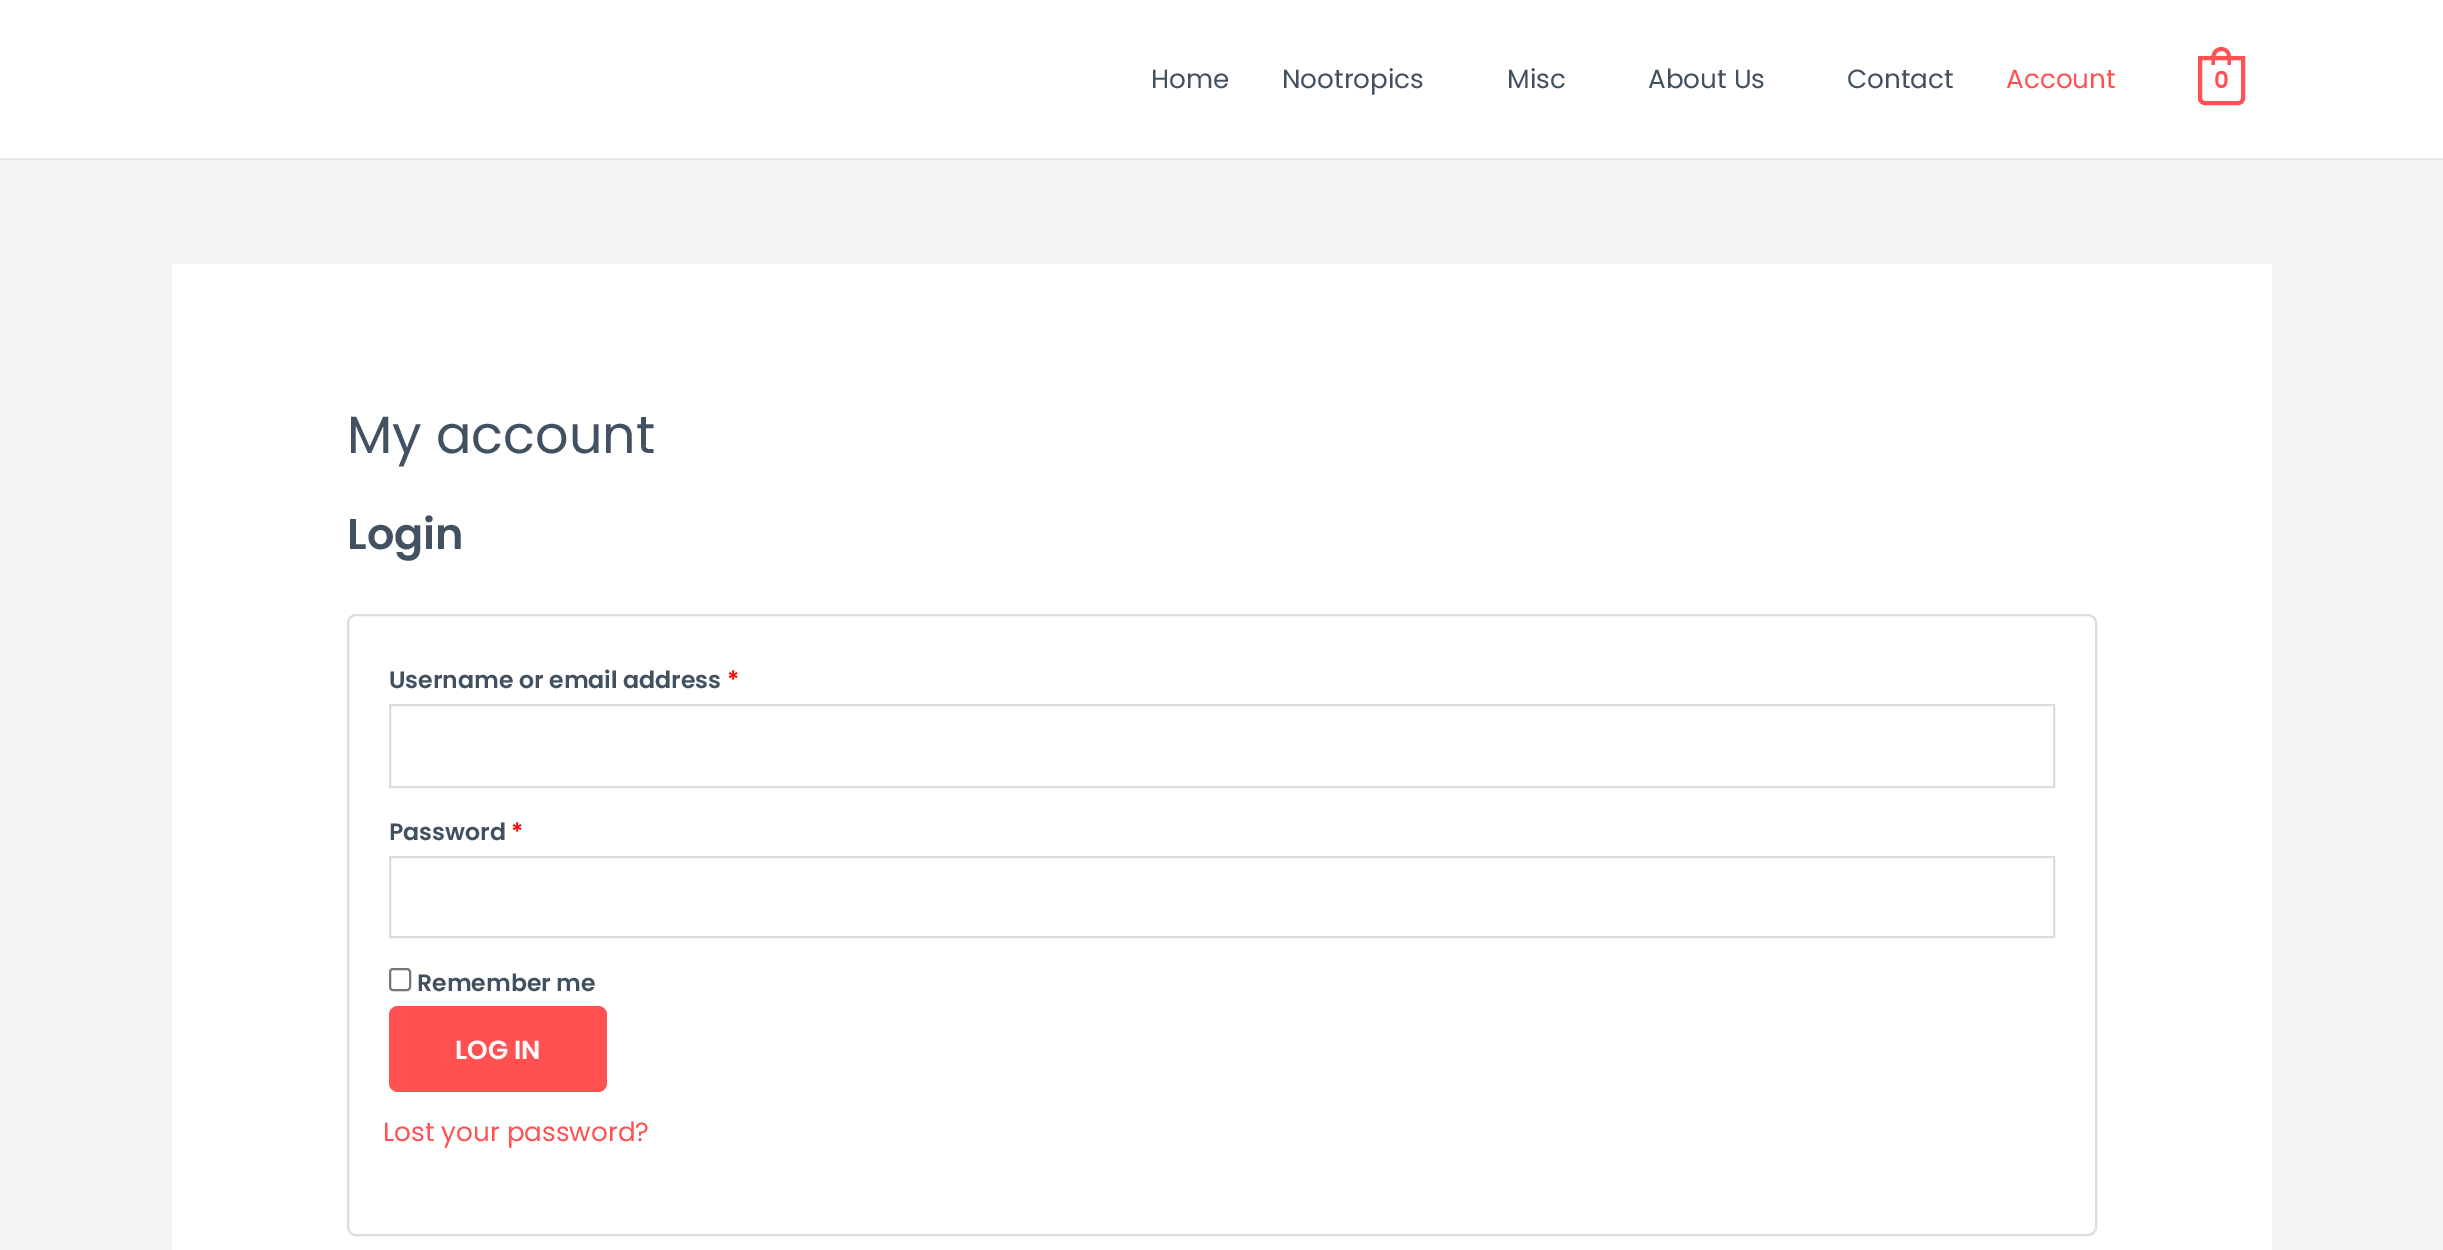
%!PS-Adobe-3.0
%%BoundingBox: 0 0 2443 1250
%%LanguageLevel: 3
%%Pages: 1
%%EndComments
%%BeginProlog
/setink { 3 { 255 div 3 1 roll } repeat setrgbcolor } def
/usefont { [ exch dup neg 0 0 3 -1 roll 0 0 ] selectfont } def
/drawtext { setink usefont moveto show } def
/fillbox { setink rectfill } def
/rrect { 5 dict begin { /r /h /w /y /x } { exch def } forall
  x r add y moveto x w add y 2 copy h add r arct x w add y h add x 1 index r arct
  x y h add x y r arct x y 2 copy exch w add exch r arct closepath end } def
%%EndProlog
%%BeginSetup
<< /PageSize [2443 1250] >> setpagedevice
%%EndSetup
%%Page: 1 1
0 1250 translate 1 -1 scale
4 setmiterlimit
0 0 2443 1250 245 245 245 fillbox
0 159 2443 1 228 228 228 fillbox
0 0 2443 158 255 255 255 fillbox
0 158 2443 1 237 237 237 fillbox
(Home) 1151 88 /Poppins-Regular 26.25 65 81 97 drawtext
(Nootropics) 1282 88 /Poppins-Regular 26.25 65 81 97 drawtext
(Misc) 1507 88 /Poppins-Regular 26.25 65 81 97 drawtext
(About Us) 1648 88 /Poppins-Regular 26.25 65 81 97 drawtext
(Contact) 1847 88 /Poppins-Regular 26.25 65 81 97 drawtext
(Account) 2006 88 /Poppins-Regular 26.25 255 81 81 drawtext
4 setlinewidth
2200 58 moveto 2243 58 lineto 2243 98 lineto 2243 101 2241 103 2238 103 curveto 2205 103 lineto 2202 103 2200 101 2200 98 curveto closepath stroke
2221.5 47 moveto 2226.5 47 2231 51.5 2231 57 curveto 2231 65 lineto 2211.5 65 lineto 2211.5 57 lineto 2211.5 51.5 2216 47 2221.5 47 curveto closepath 2221.5 51 moveto 2229 51 2227.5 60 2227.5 65 curveto 2215 65 lineto 2215 60 2214 51 2221.5 51 curveto closepath eofill
(0) 2214 88 /Poppins-SemiBold 23 255 81 81 drawtext
172 264 2100 986 255 255 255 fillbox
(My account) 347 453 /Poppins-Regular 52.5 65 81 97 drawtext
(Login) 347 549 /Poppins-SemiBold 43 65 81 97 drawtext
221 221 221 setink
2 setlinewidth
348 615 1748 620 8 rrect stroke
(Username or email address) 389 688 /Poppins-SemiBold 23.6 65 81 97 drawtext
(*) 727 688 /Poppins-SemiBold 23.6 255 0 0 drawtext
221 221 221 setink
390 705 1664 82 rectstroke
(Password) 389 840 /Poppins-SemiBold 23.6 65 81 97 drawtext
(*) 511 840 /Poppins-SemiBold 23.6 255 0 0 drawtext
221 221 221 setink
390 857 1664 80 rectstroke
118 118 118 setink
390 969 20 21 3 rrect stroke
(Remember me) 417 991 /Poppins-SemiBold 23.6 65 81 97 drawtext
255 81 81 setink
389 1006 218 86 9 rrect fill
(LOG IN) 455 1059 /Poppins-SemiBold 26.25 255 255 255 drawtext
(Lost your password?) 383 1141 /Poppins-Regular 26.25 255 81 81 drawtext
showpage
%%EOF
